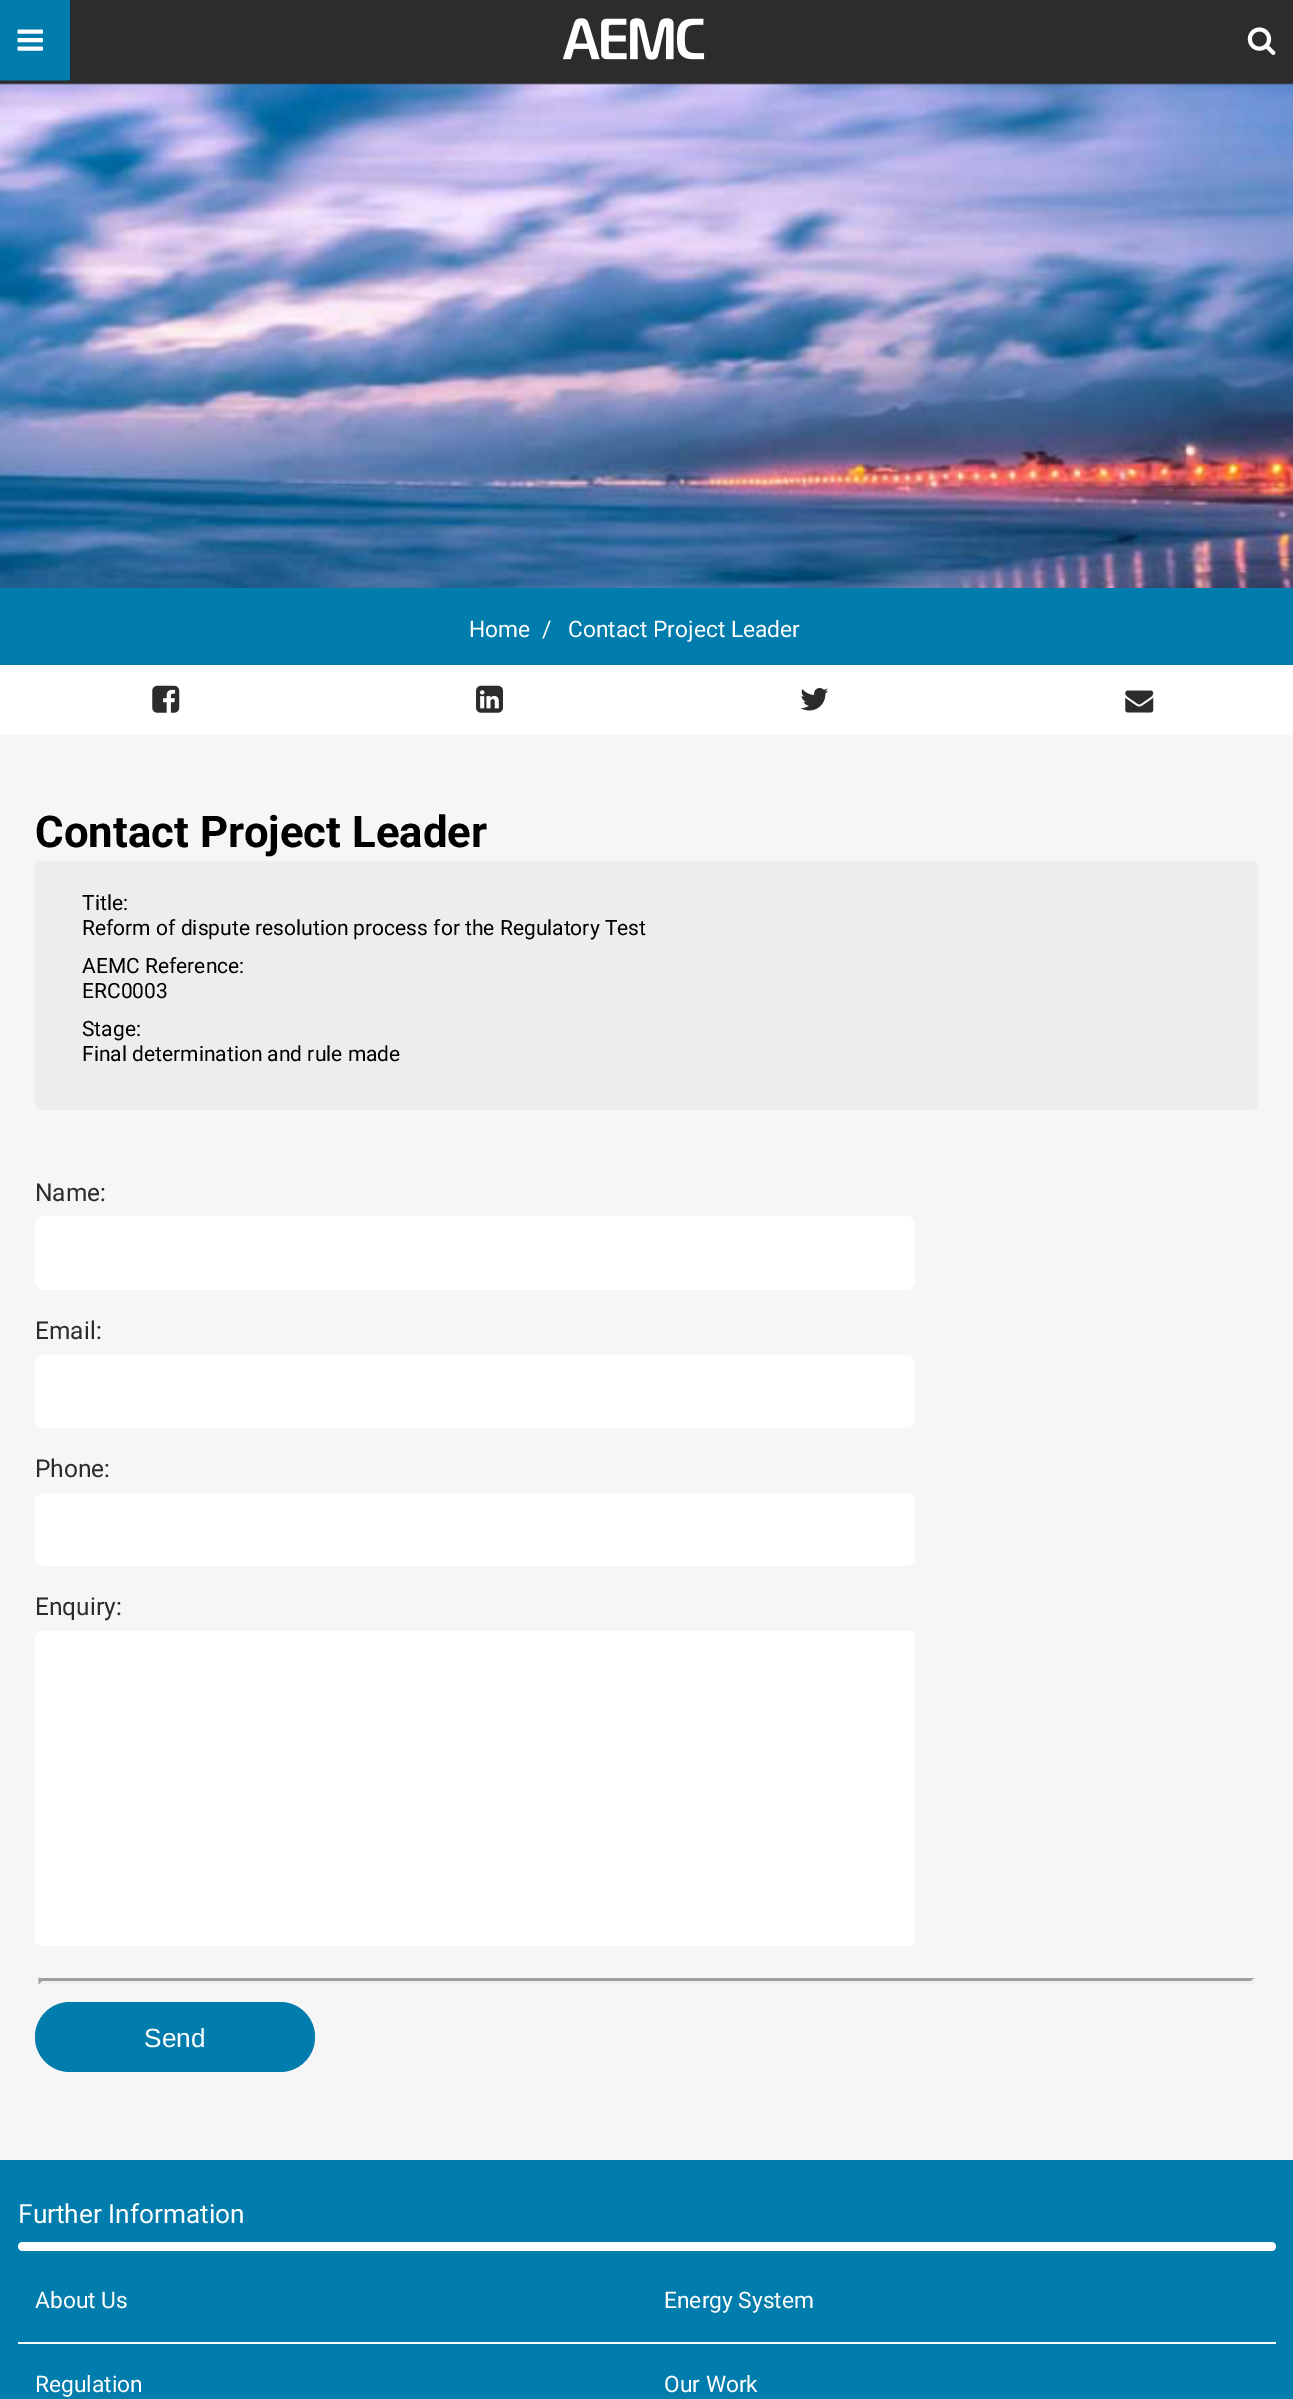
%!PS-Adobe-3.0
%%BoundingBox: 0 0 1293 2399
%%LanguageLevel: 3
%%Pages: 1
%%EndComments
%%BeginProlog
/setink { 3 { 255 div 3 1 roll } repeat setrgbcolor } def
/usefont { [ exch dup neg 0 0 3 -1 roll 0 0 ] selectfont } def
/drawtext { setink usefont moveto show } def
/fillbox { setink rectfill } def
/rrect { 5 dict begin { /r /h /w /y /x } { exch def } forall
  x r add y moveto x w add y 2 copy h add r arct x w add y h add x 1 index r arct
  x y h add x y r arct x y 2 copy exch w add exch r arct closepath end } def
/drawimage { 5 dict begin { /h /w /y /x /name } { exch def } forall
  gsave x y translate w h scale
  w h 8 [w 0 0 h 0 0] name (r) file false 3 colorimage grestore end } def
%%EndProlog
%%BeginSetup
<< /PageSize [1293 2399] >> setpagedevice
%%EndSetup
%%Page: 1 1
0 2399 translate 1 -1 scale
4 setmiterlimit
0 0 1293 2399 246 246 246 fillbox
70 0 1223 81 44 44 44 fillbox
0 0 70 81 0 124 173 fillbox
(assets/img1.rgb) 17 29 26 22 drawimage
(assets/img2.rgb) 562 18 143 42 drawimage
(assets/img3.rgb) 1247 27 29 28 drawimage
(assets/img4.rgb) 0 80 1293 508 drawimage
0 588 1293 77 0 124 173 fillbox
(Home) 469 637 /Roboto-Regular 22.75 255 255 255 drawtext
(/) 542 637 /Roboto-Regular 22.75 255 255 255 drawtext
(Contact Project Leader) 568 637 /Roboto-Regular 22.75 255 255 255 drawtext
0 665 1293 70 255 255 255 fillbox
(assets/img5.rgb) 152 685 28 28 drawimage
(assets/img6.rgb) 476 685 27 28 drawimage
(assets/img7.rgb) 800 688 29 23 drawimage
(assets/img8.rgb) 1125 690 29 23 drawimage
(Contact Project Leader) 35 847 /Roboto-Bold 43.75 0 0 0 drawtext
237 237 237 setink
35 861 1223 249 7 rrect fill
(Title:) 82 910 /Roboto-Regular 21 0 0 0 drawtext
(Reform of dispute resolution process for the Regulatory Test) 82 935 /Roboto-Regular 21 0 0 0 drawtext
(AEMC Reference:) 82 973 /Roboto-Regular 21 0 0 0 drawtext
(ERC0003) 82 998 /Roboto-Regular 21 0 0 0 drawtext
(Stage:) 82 1036 /Roboto-Regular 21 0 0 0 drawtext
(Final determination and rule made) 82 1061 /Roboto-Regular 21 0 0 0 drawtext
(Name:) 35 1201 /Roboto-Regular 24.5 44 44 44 drawtext
255 255 255 setink
35 1216 880 74 9 rrect fill
(Email:) 35 1339 /Roboto-Regular 24.5 44 44 44 drawtext
255 255 255 setink
35 1355 880 73 9 rrect fill
(Phone:) 35 1477 /Roboto-Regular 24.5 44 44 44 drawtext
255 255 255 setink
35 1493 880 73 9 rrect fill
(Enquiry:) 35 1615 /Roboto-Regular 24.5 44 44 44 drawtext
255 255 255 setink
35 1631 880 315 7 rrect fill
159 159 159 setink
38 1978 moveto 1255 1978 lineto 1251 1981 lineto 42 1981 lineto closepath fill
239 239 239 setink
1255 1977.5 moveto 1255 1984.5 lineto 1251 1981 lineto closepath fill
1255 1984 moveto 38 1984 lineto 42 1981 lineto 1251 1981 lineto closepath fill
159 159 159 setink
38.5 1984.5 moveto 38.5 1977.5 lineto 42 1981 lineto closepath fill
0 124 173 setink
35 2002 280 70 35 rrect fill
(Send) 144 2047 /LiberationSans-Regular 26.25 255 255 255 drawtext
0 2160 1293 239 0 124 173 fillbox
(Further Information) 18 2223 /Roboto-Regular 26.25 255 255 255 drawtext
18 2242 1258 9 4.5 rrect fill
(About Us) 35 2308 /Roboto-Regular 22.75 255 255 255 drawtext
(Energy System) 664 2308 /Roboto-Regular 22.75 255 255 255 drawtext
18 2342 1258 2 1 rrect fill
(Regulation) 35 2392 /Roboto-Regular 22.75 255 255 255 drawtext
(Our Work) 664 2392 /Roboto-Regular 22.75 255 255 255 drawtext
showpage
%%EOF
